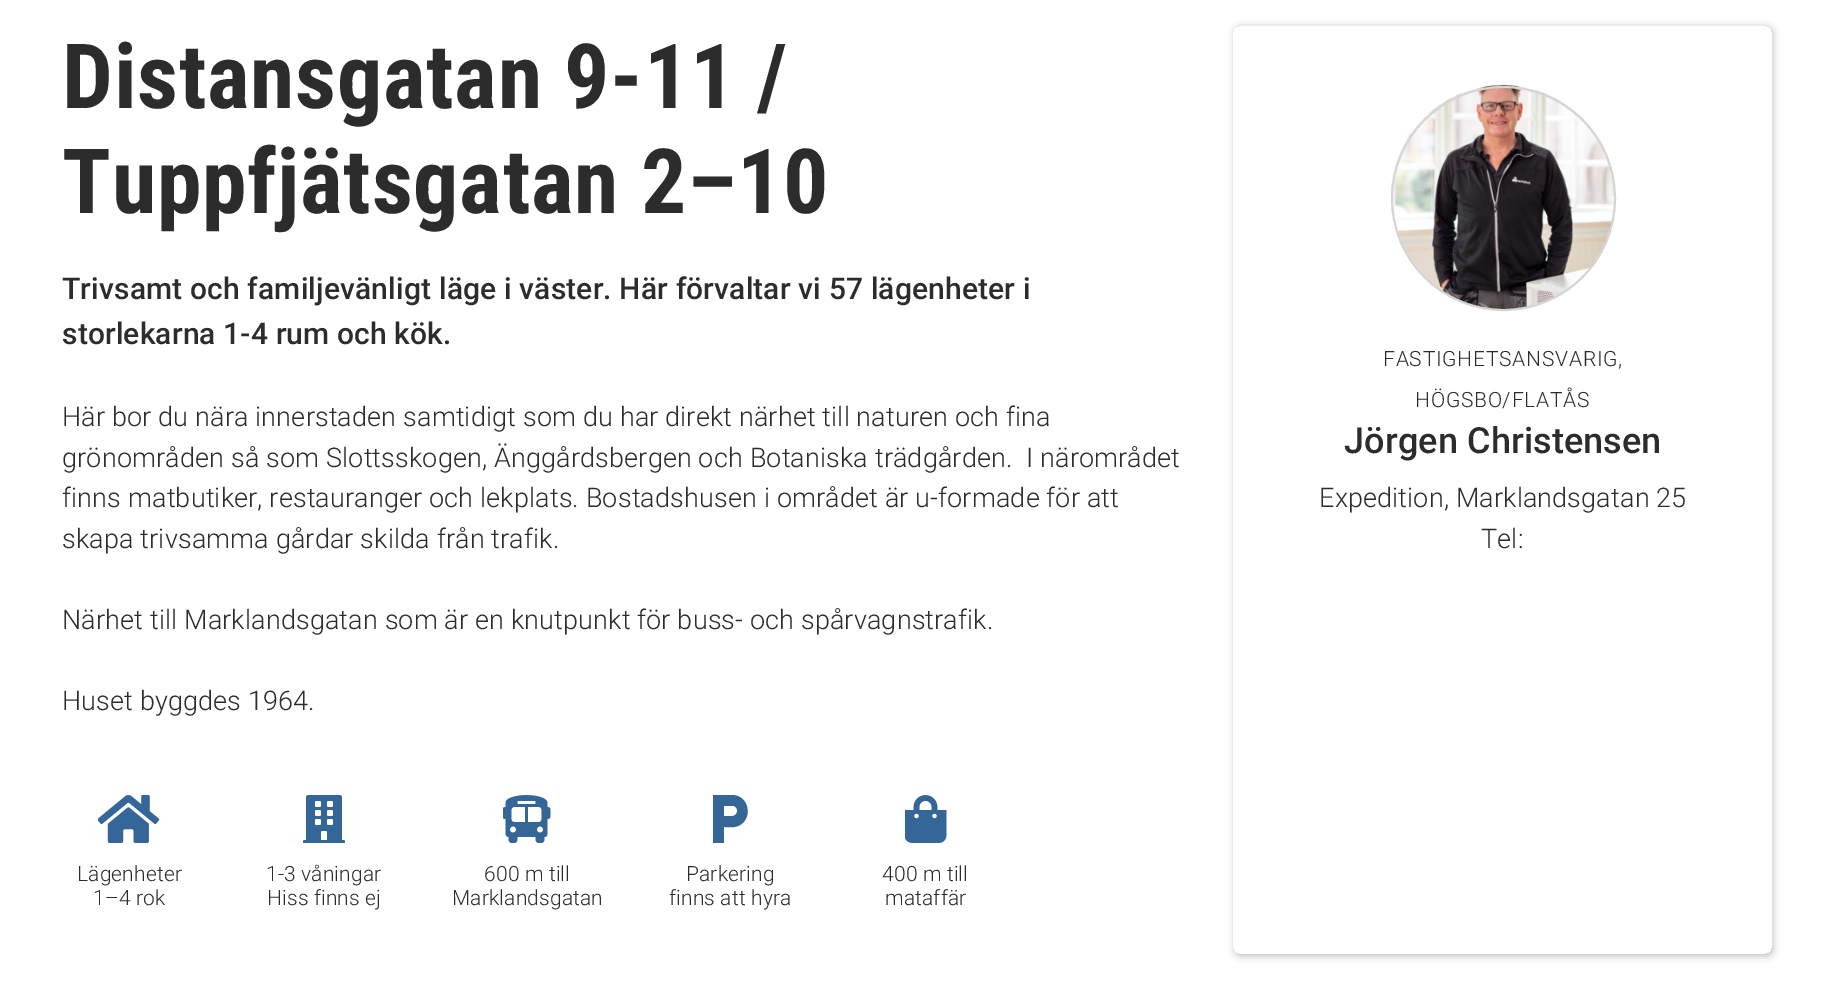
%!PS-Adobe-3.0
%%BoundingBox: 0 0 1832 1002
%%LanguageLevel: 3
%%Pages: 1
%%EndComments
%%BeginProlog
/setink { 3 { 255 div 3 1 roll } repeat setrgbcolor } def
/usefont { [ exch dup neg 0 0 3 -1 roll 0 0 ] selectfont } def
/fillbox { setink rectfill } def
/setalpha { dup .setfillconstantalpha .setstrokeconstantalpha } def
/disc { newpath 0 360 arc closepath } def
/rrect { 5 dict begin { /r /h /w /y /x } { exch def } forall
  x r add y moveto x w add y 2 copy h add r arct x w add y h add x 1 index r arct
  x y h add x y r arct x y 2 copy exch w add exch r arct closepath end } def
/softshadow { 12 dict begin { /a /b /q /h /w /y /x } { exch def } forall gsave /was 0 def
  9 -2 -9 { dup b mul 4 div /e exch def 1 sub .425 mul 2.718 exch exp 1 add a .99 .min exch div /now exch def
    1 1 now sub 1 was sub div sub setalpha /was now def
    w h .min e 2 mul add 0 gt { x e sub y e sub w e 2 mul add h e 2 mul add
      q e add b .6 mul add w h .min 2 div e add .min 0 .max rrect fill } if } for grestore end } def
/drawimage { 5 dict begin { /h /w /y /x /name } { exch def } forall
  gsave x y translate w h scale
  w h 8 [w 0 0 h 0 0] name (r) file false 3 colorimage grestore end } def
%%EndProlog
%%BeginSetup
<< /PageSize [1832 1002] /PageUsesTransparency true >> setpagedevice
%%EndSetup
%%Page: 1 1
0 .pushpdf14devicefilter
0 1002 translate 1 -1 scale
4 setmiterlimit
0 0 1832 1002 255 255 255 fillbox
/RobotoCondensed-Bold 90 usefont
44 44 44 setink
62 108 moveto 0.75 0 (Distansgatan 9-11 /) ashow
62 213 moveto 0.75 0 (Tuppfjätsgatan 2–10) ashow
/Roboto-Medium 30 usefont
62 299 moveto 0.15 0 (Trivsamt och familjevänligt läge i väster. Här förvaltar vi 57 lägenheter i) ashow
62 344 moveto 0.15 0 (storlekarna 1-4 rum och kök.) ashow
/Roboto-Light 27 usefont
62 426 moveto 0.15 0 (Här bor du nära innerstaden samtidigt som du har direkt närhet till naturen och fina) ashow
62 467 moveto 0.15 0 (grönområden så som Slottsskogen, Änggårdsbergen och Botaniska trädgården.  I närområdet) ashow
62 507 moveto 0.15 0 (finns matbutiker, restauranger och lekplats. Bostadshusen i området är u-formade för att) ashow
62 548 moveto 0.15 0 (skapa trivsamma gårdar skilda från trafik.) ashow
62 629 moveto 0.15 0 (Närhet till Marklandsgatan som är en knutpunkt för buss- och spårvagnstrafik.) ashow
62 710 moveto 0.15 0 (Huset byggdes 1964.) ashow
(assets/img1.rgb) 98 795 62 48 drawimage
/Roboto-Light 21 usefont
77 881 moveto 0.15 0 (Lägenheter) ashow
93 905 moveto 0.15 0 (1–4 rok) ashow
(assets/img2.rgb) 303 795 42 48 drawimage
266 881 moveto 0.15 0 (1-3 våningar) ashow
267 905 moveto 0.15 0 (Hiss finns ej) ashow
(assets/img3.rgb) 503 795 48 48 drawimage
484 881 moveto 0.15 0 (600 m till) ashow
452 905 moveto 0.15 0 (Marklandsgatan) ashow
53 102 152 setink
732 795 moveto 713 795 lineto 713 843 lineto 724 843 lineto 724 827 lineto 728 827 733 828 738 826 curveto 754 819 749 795 732 795 curveto closepath 732 816 moveto 724 816 lineto 724 806 lineto 734 806 lineto 739 808 738 816 732 816 curveto closepath fill
44 44 44 setink
686 881 moveto 0.15 0 (Parkering) ashow
669 905 moveto 0.15 0 (finns att hyra) ashow
(assets/img4.rgb) 905 795 42 48 drawimage
882 881 moveto 0.15 0 (400 m till) ashow
885 905 moveto 0.15 0 (mataffär) ashow
gsave
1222 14 moveto 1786 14 lineto 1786 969 lineto 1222 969 lineto closepath 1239 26 moveto 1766 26 lineto 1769.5 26 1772 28.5 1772 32 curveto 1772 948 lineto 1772 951.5 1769.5 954 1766 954 curveto 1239 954 lineto 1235.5 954 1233 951.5 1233 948 curveto 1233 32 lineto 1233 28.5 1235.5 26 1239 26 curveto closepath eoclip newpath
0 0 0 setink
1235 27 538 929 6 4 0.25 softshadow
grestore
(assets/img5.rgb) 1391 85 224 224 drawimage
213 213 213 setink
2 setlinewidth
1503.5 198.5 111.5 disc stroke
44 44 44 setink
1383 366 moveto 0.75 0 (FASTIGHETSANSVARIG,) ashow
1415 407 moveto 0.75 0 (HÖGSBO/FLATÅS) ashow
/Roboto-Medium 36 usefont
1344 453 moveto 0.15 0 (Jörgen Christensen) ashow
/Roboto-Light 27 usefont
1319 507 moveto 0.15 0 (Expedition, Marklandsgatan 25) ashow
1481 548 moveto 0.15 0 (Tel:) ashow
.poppdf14devicefilter showpage
%%EOF
